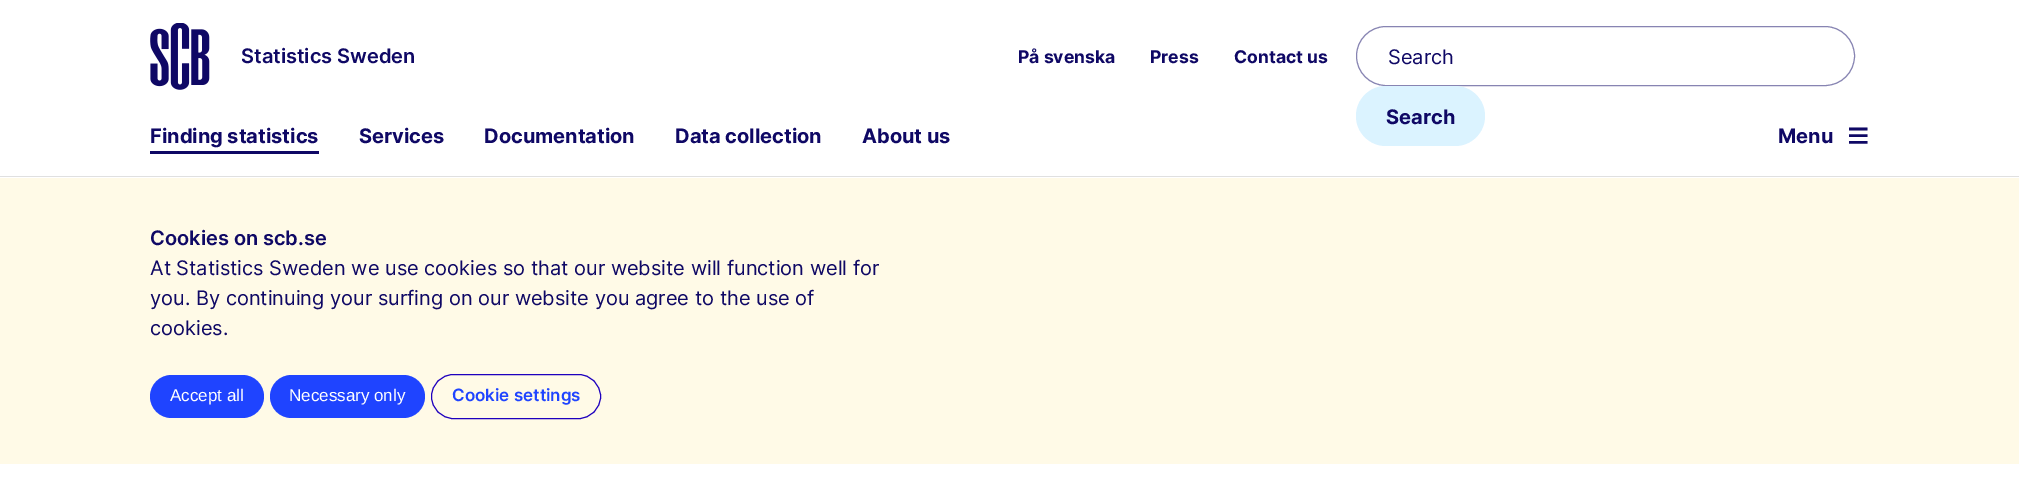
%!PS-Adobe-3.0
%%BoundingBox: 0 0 2019 484
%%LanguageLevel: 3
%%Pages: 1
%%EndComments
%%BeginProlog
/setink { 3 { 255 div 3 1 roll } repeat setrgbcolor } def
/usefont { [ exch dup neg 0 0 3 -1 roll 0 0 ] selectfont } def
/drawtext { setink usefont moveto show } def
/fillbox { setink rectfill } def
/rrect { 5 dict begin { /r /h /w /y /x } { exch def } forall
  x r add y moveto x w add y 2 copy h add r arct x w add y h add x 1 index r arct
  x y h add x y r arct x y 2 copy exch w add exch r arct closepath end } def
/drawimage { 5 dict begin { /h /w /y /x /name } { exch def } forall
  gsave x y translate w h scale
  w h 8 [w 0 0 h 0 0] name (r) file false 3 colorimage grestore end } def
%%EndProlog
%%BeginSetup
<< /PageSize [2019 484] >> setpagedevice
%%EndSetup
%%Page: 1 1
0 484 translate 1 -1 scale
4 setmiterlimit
0 0 2019 484 255 255 255 fillbox
0 176 2019 1 224 224 224 fillbox
(assets/img1.rgb) 150 23 60 67 drawimage
(Statistics Sweden) 241 63 /Inter-SemiBold 20 15 8 101 drawtext
(På svenska) 1018 63 /Inter-Bold 17.5 15 8 101 drawtext
(Press) 1150 63 /Inter-Bold 17.5 15 8 101 drawtext
(Contact us) 1234 63 /Inter-Bold 17.5 15 8 101 drawtext
135 132 178 setink
1356.5 26.5 498 59 29.5 rrect stroke
(Search) 1388 64 /Inter-Regular 20 15 8 101 drawtext
219 243 255 setink
1356 86 129 60 30 rrect fill
(Search) 1386 124 /Inter-Bold 20 15 8 101 drawtext
150 151 169 3 15 8 101 fillbox
(Finding statistics) 150 143 /Inter-Bold 20 15 8 101 drawtext
(Services) 359 143 /Inter-Bold 20 15 8 101 drawtext
(Documentation) 484 143 /Inter-Bold 20 15 8 101 drawtext
(Data collection) 675 143 /Inter-Bold 20 15 8 101 drawtext
(About us) 862 143 /Inter-Bold 20 15 8 101 drawtext
(Menu) 1778 143 /Inter-Bold 20 15 8 101 drawtext
(≡) 1847 149 /LiberationSerif-Bold 40 15 8 101 drawtext
0 178 2019 286 255 250 231 fillbox
(Cookies on scb.se) 150 245 /Inter-SemiBold 20 15 8 101 drawtext
(At Statistics Sweden we use cookies so that our website will function well for) 150 275 /Inter-Regular 20 15 8 101 drawtext
(you. By continuing your surfing on our website you agree to the use of) 150 305 /Inter-Regular 20 15 8 101 drawtext
(cookies.) 150 335 /Inter-Regular 20 15 8 101 drawtext
31 68 255 setink
150 375 114 43 21.5 rrect fill
(Accept all) 170 401 /LiberationSans-Regular 17 255 255 255 drawtext
31 68 255 setink
270 375 155 43 21.5 rrect fill
(Necessary only) 289 401 /LiberationSans-Regular 17 255 255 255 drawtext
30 0 190 setink
431.5 374.5 169 44 22 rrect stroke
(Cookie settings) 452 401 /Inter-SemiBold 17 31 68 255 drawtext
showpage
%%EOF
